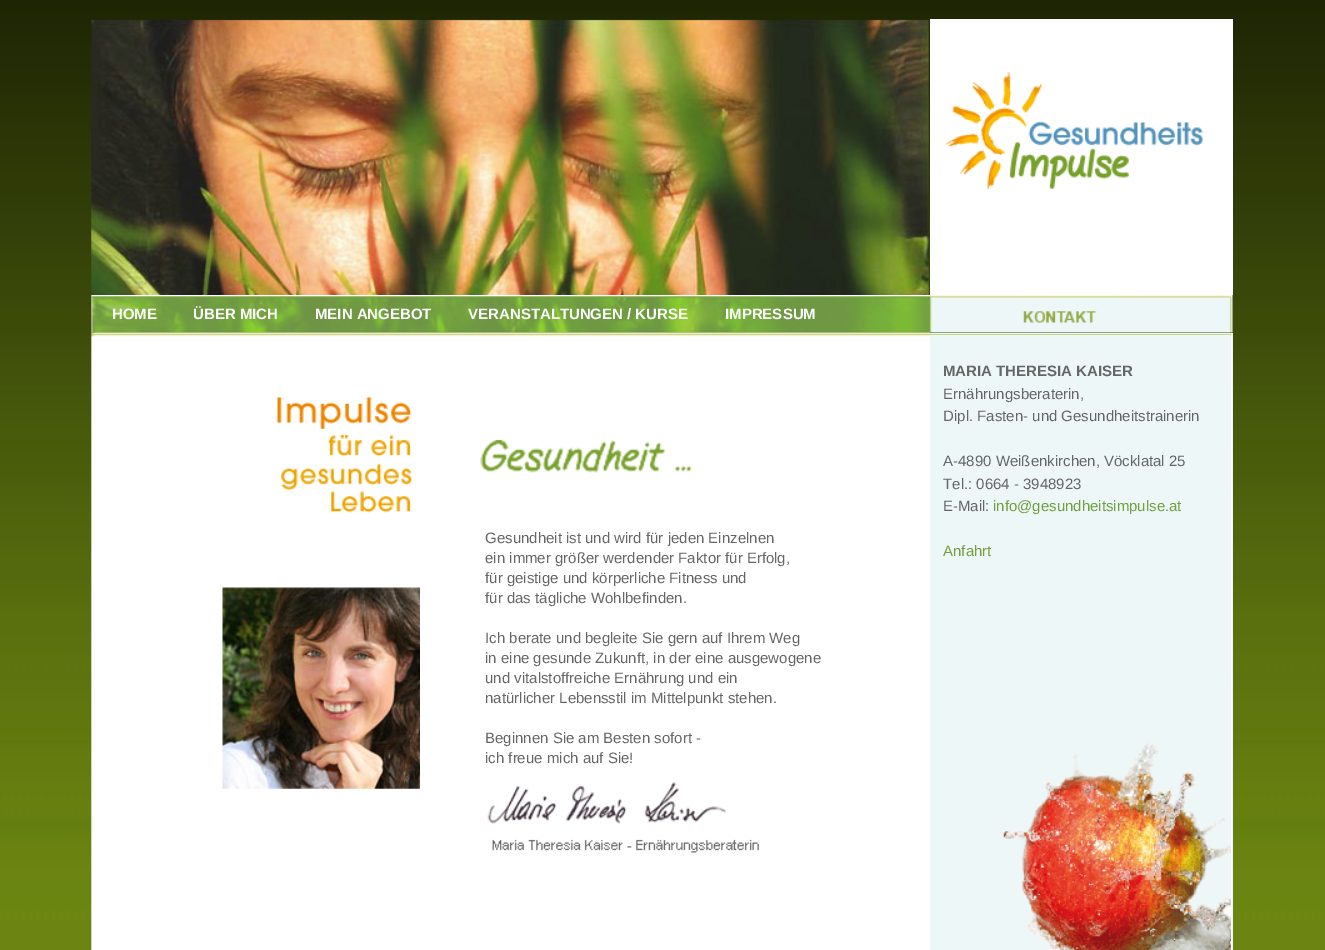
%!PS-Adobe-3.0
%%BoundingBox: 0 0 1325 950
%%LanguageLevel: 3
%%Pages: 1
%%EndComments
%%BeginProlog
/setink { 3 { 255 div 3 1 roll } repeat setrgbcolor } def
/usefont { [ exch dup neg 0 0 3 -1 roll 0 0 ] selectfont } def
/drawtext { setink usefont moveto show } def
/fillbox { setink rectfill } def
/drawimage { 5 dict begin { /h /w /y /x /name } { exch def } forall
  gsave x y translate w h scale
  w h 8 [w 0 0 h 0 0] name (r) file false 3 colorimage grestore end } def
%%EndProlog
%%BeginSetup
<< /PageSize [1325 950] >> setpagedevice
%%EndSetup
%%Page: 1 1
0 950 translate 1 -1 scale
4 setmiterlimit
0 0 1325 950 255 255 255 fillbox
(assets/img1.rgb) 0 0 1325 950 drawimage
(assets/img2.rgb) 91 19 838 278 drawimage
930 19 303 276 255 255 255 fillbox
(assets/img3.rgb) 945 71 258 119 drawimage
(assets/img4.rgb) 91 295 1142 38 drawimage
(HOME) 112 319 /LiberationSans-Bold 15 255 255 255 drawtext
(ÜBER MICH) 193 319 /LiberationSans-Bold 15 255 255 255 drawtext
(MEIN ANGEBOT) 315 319 /LiberationSans-Bold 15 255 255 255 drawtext
(VERANSTALTUNGEN / KURSE) 468 319 /LiberationSans-Bold 15 255 255 255 drawtext
(IMPRESSUM) 725 319 /LiberationSans-Bold 15 255 255 255 drawtext
930 333 303 617 237 247 248 fillbox
(assets/img5.rgb) 1002 742 229 208 drawimage
1231 333 1 617 255 255 255 fillbox
930 334 301 1 195 214 140 fillbox
(MARIA THERESIA KAISER) 943 376 /LiberationSans-Bold 15 102 102 102 drawtext
(Ernährungsberaterin,) 943 399 /LiberationSans-Regular 15 102 102 102 drawtext
(Dipl. Fasten- und Gesundheitstrainerin) 943 421 /LiberationSans-Regular 15 102 102 102 drawtext
(A-4890 Weißenkirchen, Vöcklatal 25) 943 466 /LiberationSans-Regular 15 102 102 102 drawtext
(Tel.: 0664 - 3948923) 943 489 /LiberationSans-Regular 15 102 102 102 drawtext
(E-Mail:) 943 511 /LiberationSans-Regular 15 102 102 102 drawtext
(info@gesundheitsimpulse.at) 993 511 /LiberationSans-Regular 15 115 160 63 drawtext
(Anfahrt) 943 556 /LiberationSans-Regular 15 115 160 63 drawtext
(assets/img6.rgb) 91 332 839 618 drawimage
(assets/img7.rgb) 277 397 135 116 drawimage
(assets/img8.rgb) 480 439 212 34 drawimage
(assets/img9.rgb) 222 587 198 203 drawimage
(Gesundheit ist und wird für jeden Einzelnen) 485 543 /LiberationSans-Regular 15 102 102 102 drawtext
(ein immer größer werdender Faktor für Erfolg,) 485 563 /LiberationSans-Regular 15 102 102 102 drawtext
(für geistige und körperliche Fitness und) 485 583 /LiberationSans-Regular 15 102 102 102 drawtext
(für das tägliche Wohlbefinden.) 485 603 /LiberationSans-Regular 15 102 102 102 drawtext
(Ich berate und begleite Sie gern auf Ihrem Weg) 485 643 /LiberationSans-Regular 15 102 102 102 drawtext
(in eine gesunde Zukunft, in der eine ausgewogene) 485 663 /LiberationSans-Regular 15 102 102 102 drawtext
(und vitalstoffreiche Ernährung und ein) 485 683 /LiberationSans-Regular 15 102 102 102 drawtext
(natürlicher Lebensstil im Mittelpunkt stehen.) 485 703 /LiberationSans-Regular 15 102 102 102 drawtext
(Beginnen Sie am Besten sofort -) 485 743 /LiberationSans-Regular 15 102 102 102 drawtext
(ich freue mich auf Sie!) 485 763 /LiberationSans-Regular 15 102 102 102 drawtext
(assets/img10.rgb) 487 782 272 71 drawimage
showpage
%%EOF
